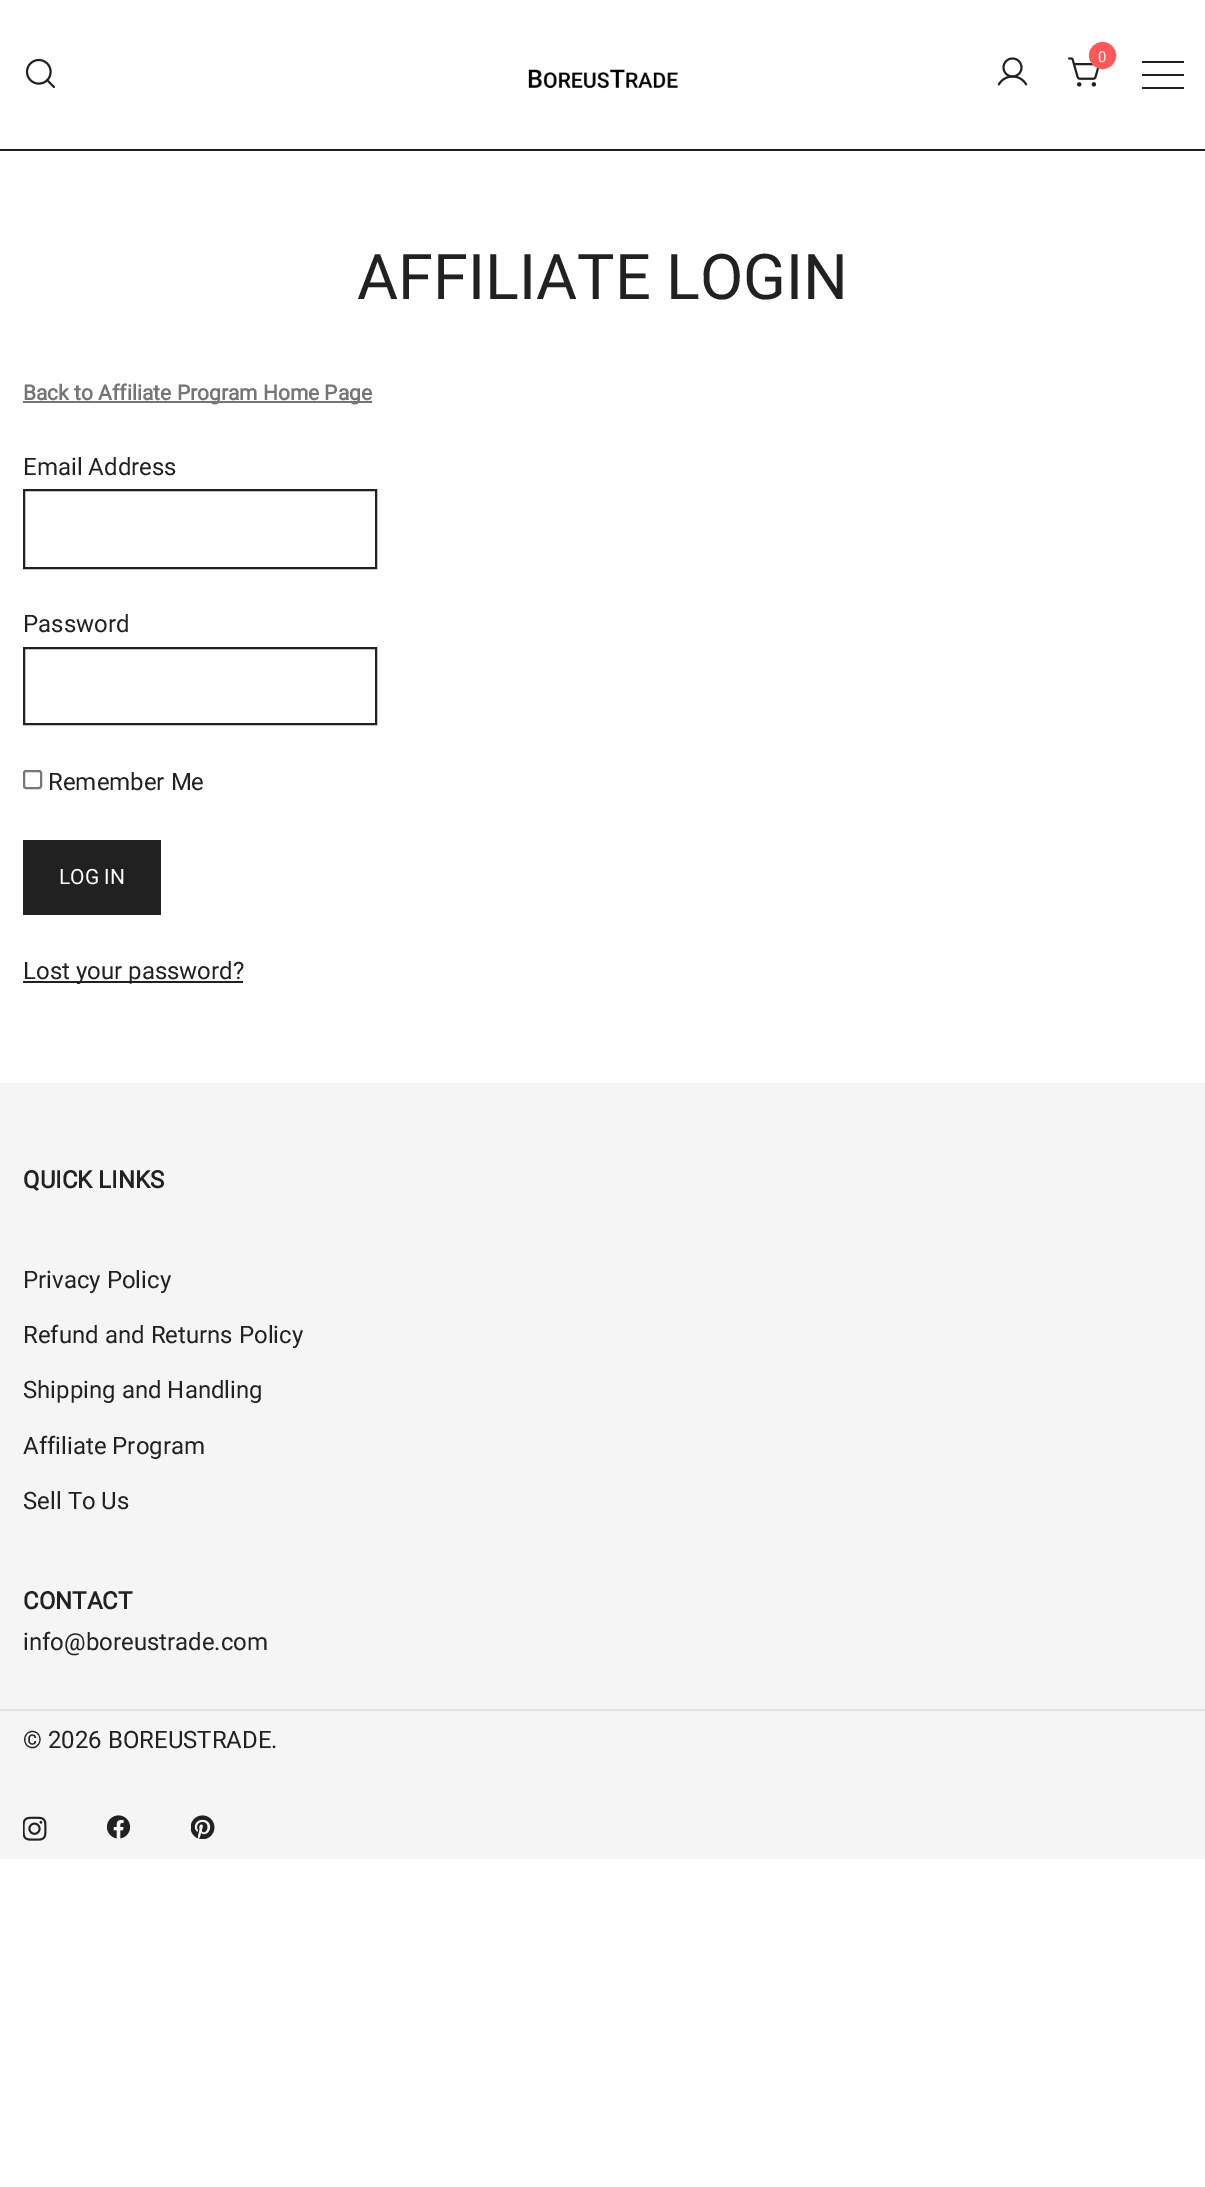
%!PS-Adobe-3.0
%%BoundingBox: 0 0 1205 2187
%%LanguageLevel: 3
%%Pages: 1
%%EndComments
%%BeginProlog
/setink { 3 { 255 div 3 1 roll } repeat setrgbcolor } def
/usefont { [ exch dup neg 0 0 3 -1 roll 0 0 ] selectfont } def
/drawtext { setink usefont moveto show } def
/fillbox { setink rectfill } def
/disc { newpath 0 360 arc closepath } def
/rrect { 5 dict begin { /r /h /w /y /x } { exch def } forall
  x r add y moveto x w add y 2 copy h add r arct x w add y h add x 1 index r arct
  x y h add x y r arct x y 2 copy exch w add exch r arct closepath end } def
/drawimage { 5 dict begin { /h /w /y /x /name } { exch def } forall
  gsave x y translate w h scale
  w h 8 [w 0 0 h 0 0] name (r) file false 3 colorimage grestore end } def
%%EndProlog
%%BeginSetup
<< /PageSize [1205 2187] >> setpagedevice
%%EndSetup
%%Page: 1 1
0 2187 translate 1 -1 scale
4 setmiterlimit
0 0 1205 2187 255 255 255 fillbox
0 149 1205 2 33 33 33 fillbox
(assets/img1.rgb) 25 58 31 31 drawimage
(assets/img2.rgb) 528 69 150 20 drawimage
(assets/img3.rgb) 997 57 31 29 drawimage
(assets/img4.rgb) 1068 57 32 30 drawimage
255 88 88 setink
1102.5 55.5 12.5 disc gsave fill grestore
2 setlinewidth
stroke
(0) 1098 62 /Roboto-Regular 15 255 255 255 drawtext
1142 61 42 2 33 33 33 fillbox
1142 74 42 2 33 33 33 fillbox
1142 87 42 2 33 33 33 fillbox
(AFFILIATE LOGIN) 357 299 /Roboto-Regular 63 33 33 33 drawtext
23 401 349 2 117 117 117 fillbox
(Back to Affiliate Program Home Page) 23 400 /Roboto-Bold 21 117 117 117 drawtext
(Email Address) 23 475 /Roboto-Regular 24 33 33 33 drawtext
24 490 352 78 rectstroke
(Password) 23 632 /Roboto-Regular 24 33 33 33 drawtext
24 648 352 76 rectstroke
118 118 118 setink
24 771 17 17 2 rrect stroke
(Remember Me) 48 790 /Roboto-Regular 24 33 33 33 drawtext
23 840 138 75 33 33 33 fillbox
(LOG IN) 59 884 /Roboto-Regular 21 255 255 255 drawtext
23 981 220 2 33 33 33 fillbox
(Lost your password?) 23 979 /Roboto-Regular 24 33 33 33 drawtext
0 1083 1205 626 245 245 245 fillbox
(QUICK LINKS) 23 1188 /Roboto-Bold 24 33 33 33 drawtext
(Privacy Policy) 23 1288 /Roboto-Regular 24 33 33 33 drawtext
(Refund and Returns Policy) 23 1343 /Roboto-Regular 24 33 33 33 drawtext
(Shipping and Handling) 23 1398 /Roboto-Regular 24 33 33 33 drawtext
(Affiliate Program) 23 1454 /Roboto-Regular 24 33 33 33 drawtext
(Sell To Us) 23 1509 /Roboto-Regular 24 33 33 33 drawtext
(CONTACT) 23 1609 /Roboto-Bold 24 33 33 33 drawtext
(info@boreustrade.com) 23 1650 /Roboto-Regular 24 33 33 33 drawtext
0 1711 1205 148 245 245 245 fillbox
0 1709 1205 2 224 224 224 fillbox
(© 2026 BOREUSTRADE.) 23 1748 /Roboto-Regular 24 33 33 33 drawtext
(assets/img5.rgb) 23 1816 24 25 drawimage
(assets/img6.rgb) 107 1815 24 24 drawimage
(assets/img7.rgb) 191 1815 24 24 drawimage
showpage
%%EOF
